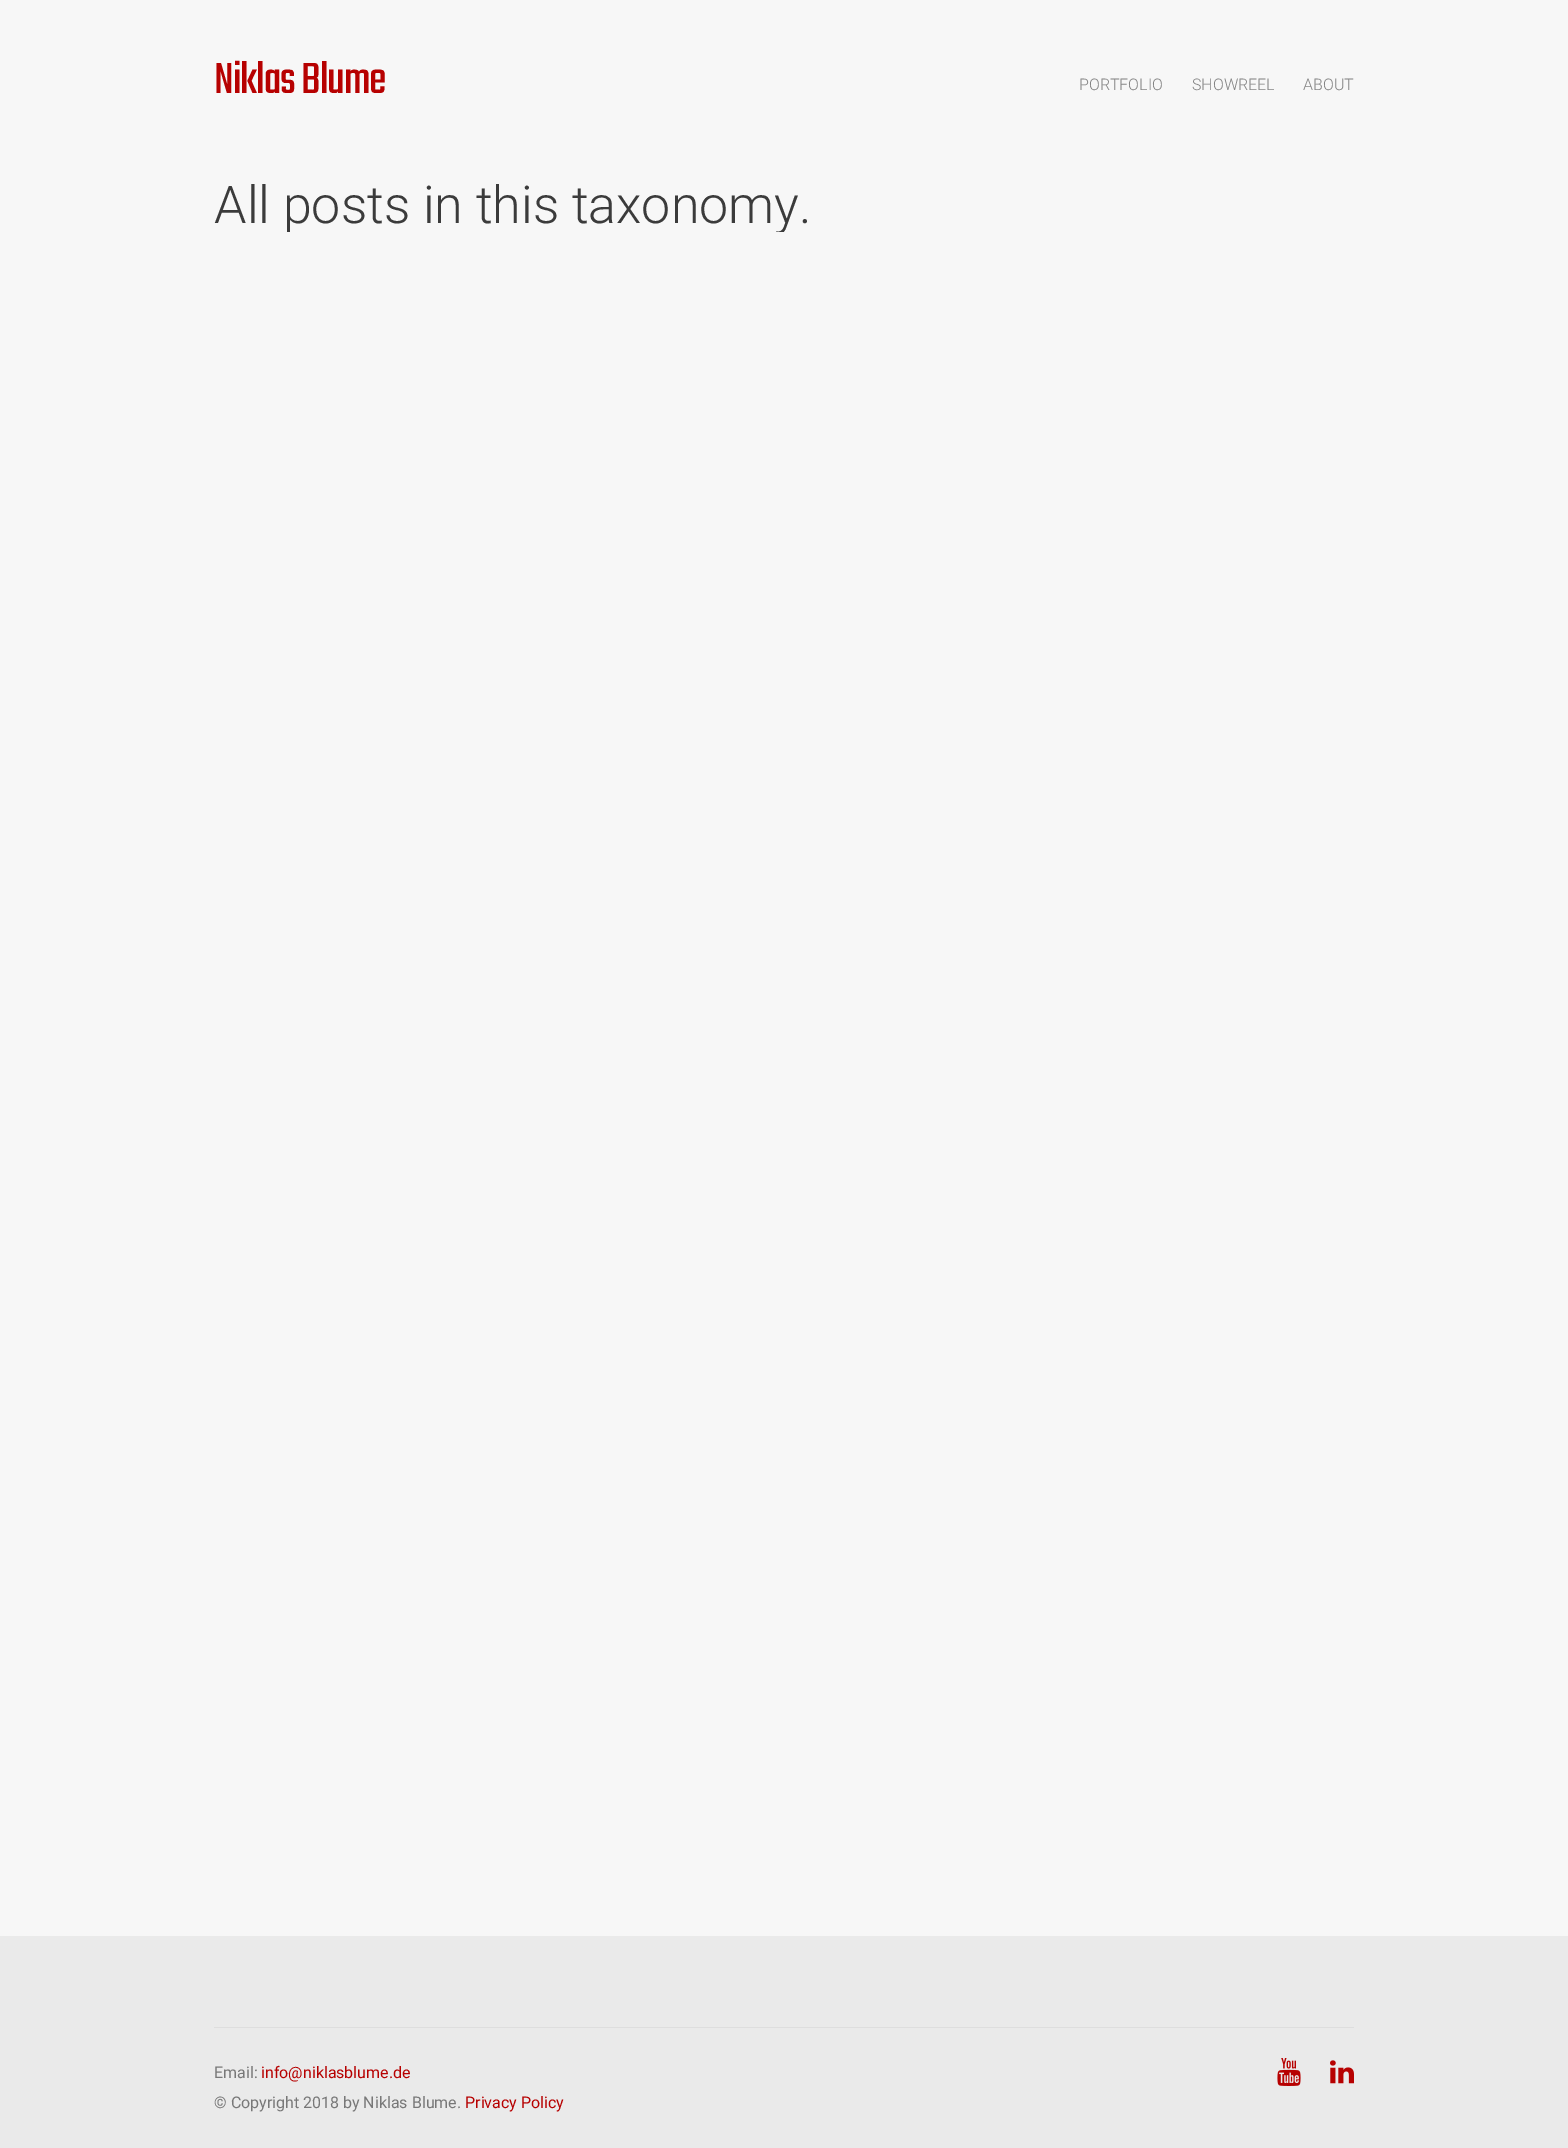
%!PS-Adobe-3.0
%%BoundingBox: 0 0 1568 2148
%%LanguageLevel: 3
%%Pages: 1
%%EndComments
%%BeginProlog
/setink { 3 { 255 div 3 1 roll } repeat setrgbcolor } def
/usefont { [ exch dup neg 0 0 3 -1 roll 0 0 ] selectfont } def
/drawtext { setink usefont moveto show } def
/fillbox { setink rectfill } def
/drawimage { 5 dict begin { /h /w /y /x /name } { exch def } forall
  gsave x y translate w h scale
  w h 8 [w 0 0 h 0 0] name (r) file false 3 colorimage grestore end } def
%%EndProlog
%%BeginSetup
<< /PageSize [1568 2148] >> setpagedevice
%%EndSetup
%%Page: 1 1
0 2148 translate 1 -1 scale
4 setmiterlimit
0 0 1568 2148 247 247 247 fillbox
/Teko-Light 48 usefont
183 1 1 setink
214 93 moveto -1 0 (Niklas Blume) ashow
(PORTFOLIO) 1079 90 /Roboto-Light 16 132 132 132 drawtext
(SHOWREEL) 1192 90 /Roboto-Light 16 132 132 132 drawtext
(ABOUT) 1303 90 /Roboto-Light 16 132 132 132 drawtext
gsave
199 180 1170 52 rectclip
(All posts in this taxonomy.) 214 223 /Roboto-Light 52 59 59 59 drawtext
grestore
0 1936 1568 212 234 234 234 fillbox
214 2027 1140 1 222 222 222 fillbox
(Email:) 214 2078 /Roboto-Regular 16 120 120 120 drawtext
(info@niklasblume.de) 261 2078 /Roboto-Regular 16 183 1 1 drawtext
(© Copyright 2018 by Niklas Blume.) 214 2108 /Roboto-Regular 16 120 120 120 drawtext
(Privacy Policy) 465 2108 /Roboto-Regular 16 183 1 1 drawtext
(assets/img1.rgb) 1277 2058 24 28 drawimage
(assets/img2.rgb) 1330 2060 24 24 drawimage
showpage
%%EOF
